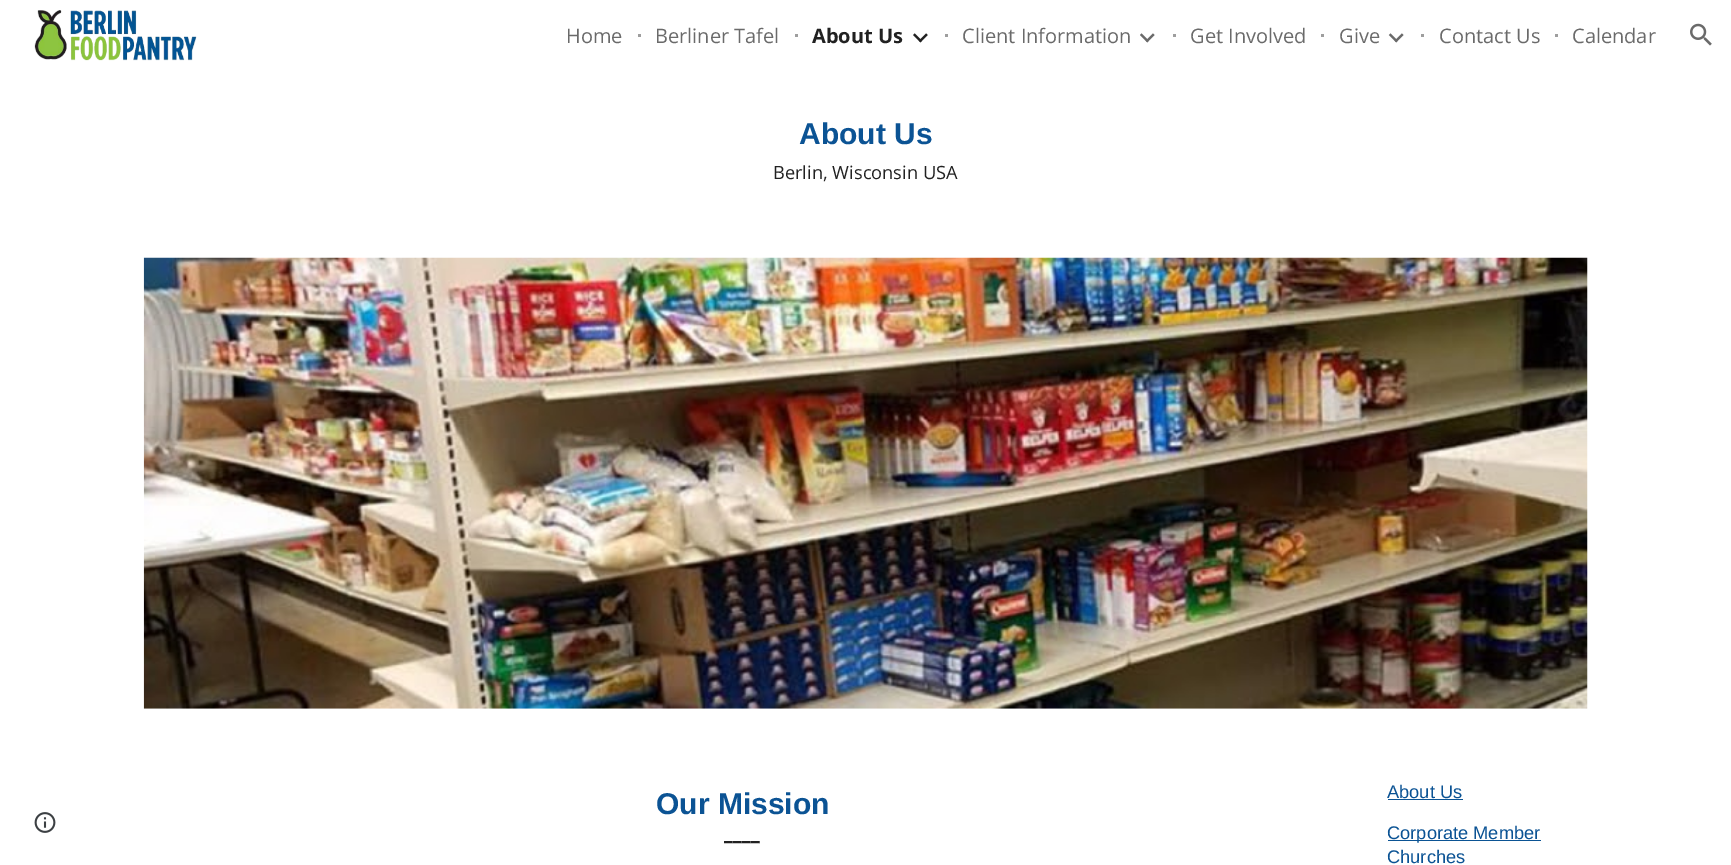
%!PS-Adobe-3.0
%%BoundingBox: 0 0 1731 865
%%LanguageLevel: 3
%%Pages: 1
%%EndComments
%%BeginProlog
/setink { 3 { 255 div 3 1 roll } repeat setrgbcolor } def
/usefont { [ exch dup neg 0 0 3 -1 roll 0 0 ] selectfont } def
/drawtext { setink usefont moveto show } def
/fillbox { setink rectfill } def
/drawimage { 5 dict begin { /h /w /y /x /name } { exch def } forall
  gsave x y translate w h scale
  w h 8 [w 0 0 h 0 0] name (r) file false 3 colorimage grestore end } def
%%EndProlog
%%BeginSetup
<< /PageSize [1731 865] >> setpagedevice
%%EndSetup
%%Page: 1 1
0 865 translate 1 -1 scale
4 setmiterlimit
0 0 1731 865 255 255 255 fillbox
(assets/img1.rgb) 34 10 163 51 drawimage
(Home) 566 43 /OpenSans-Regular 20 106 106 106 drawtext
638 34 3 3 158 158 158 fillbox
(Berliner Tafel) 655 43 /OpenSans-Regular 20 106 106 106 drawtext
795 34 3 3 158 158 158 fillbox
(About Us) 812 43 /OpenSans-Bold 20 33 33 33 drawtext
(assets/img2.rgb) 913 33 15 10 drawimage
945 34 3 3 158 158 158 fillbox
(Client Information) 962 43 /OpenSans-Regular 20 106 106 106 drawtext
(assets/img3.rgb) 1140 33 15 10 drawimage
1173 34 3 3 158 158 158 fillbox
(Get Involved) 1190 43 /OpenSans-Regular 20 106 106 106 drawtext
1321 34 3 3 158 158 158 fillbox
(Give) 1339 43 /OpenSans-Regular 20 106 106 106 drawtext
(assets/img4.rgb) 1388 33 16 10 drawimage
1421 34 3 3 158 158 158 fillbox
(Contact Us) 1439 43 /OpenSans-Regular 20 106 106 106 drawtext
1555 34 3 3 158 158 158 fillbox
(Calendar) 1572 43 /OpenSans-Regular 20 106 106 106 drawtext
(assets/img5.rgb) 1690 23 22 23 drawimage
(assets/img6.rgb) 34 812 22 21 drawimage
(About Us) 799 144 /LiberationSans-Bold 30 11 83 148 drawtext
(Berlin, Wisconsin USA) 773 179 /OpenSans-Regular 18.25 33 33 33 drawtext
(assets/img7.rgb) 143 257 1445 452 drawimage
(Our Mission) 656 814 /LiberationSans-Bold 30 11 83 148 drawtext
(____) 724 841 /Roboto-Bold 20 33 33 33 drawtext
(About Us) 1387 798 /LiberationSans-Regular 18.25 11 83 148 drawtext
1388 799 75 1 11 83 148 fillbox
1388 840 153 1 11 83 148 fillbox
(Corporate Member) 1387 839 /LiberationSans-Regular 18.25 11 83 148 drawtext
(Churches) 1387 863 /LiberationSans-Regular 18.25 11 83 148 drawtext
showpage
%%EOF
